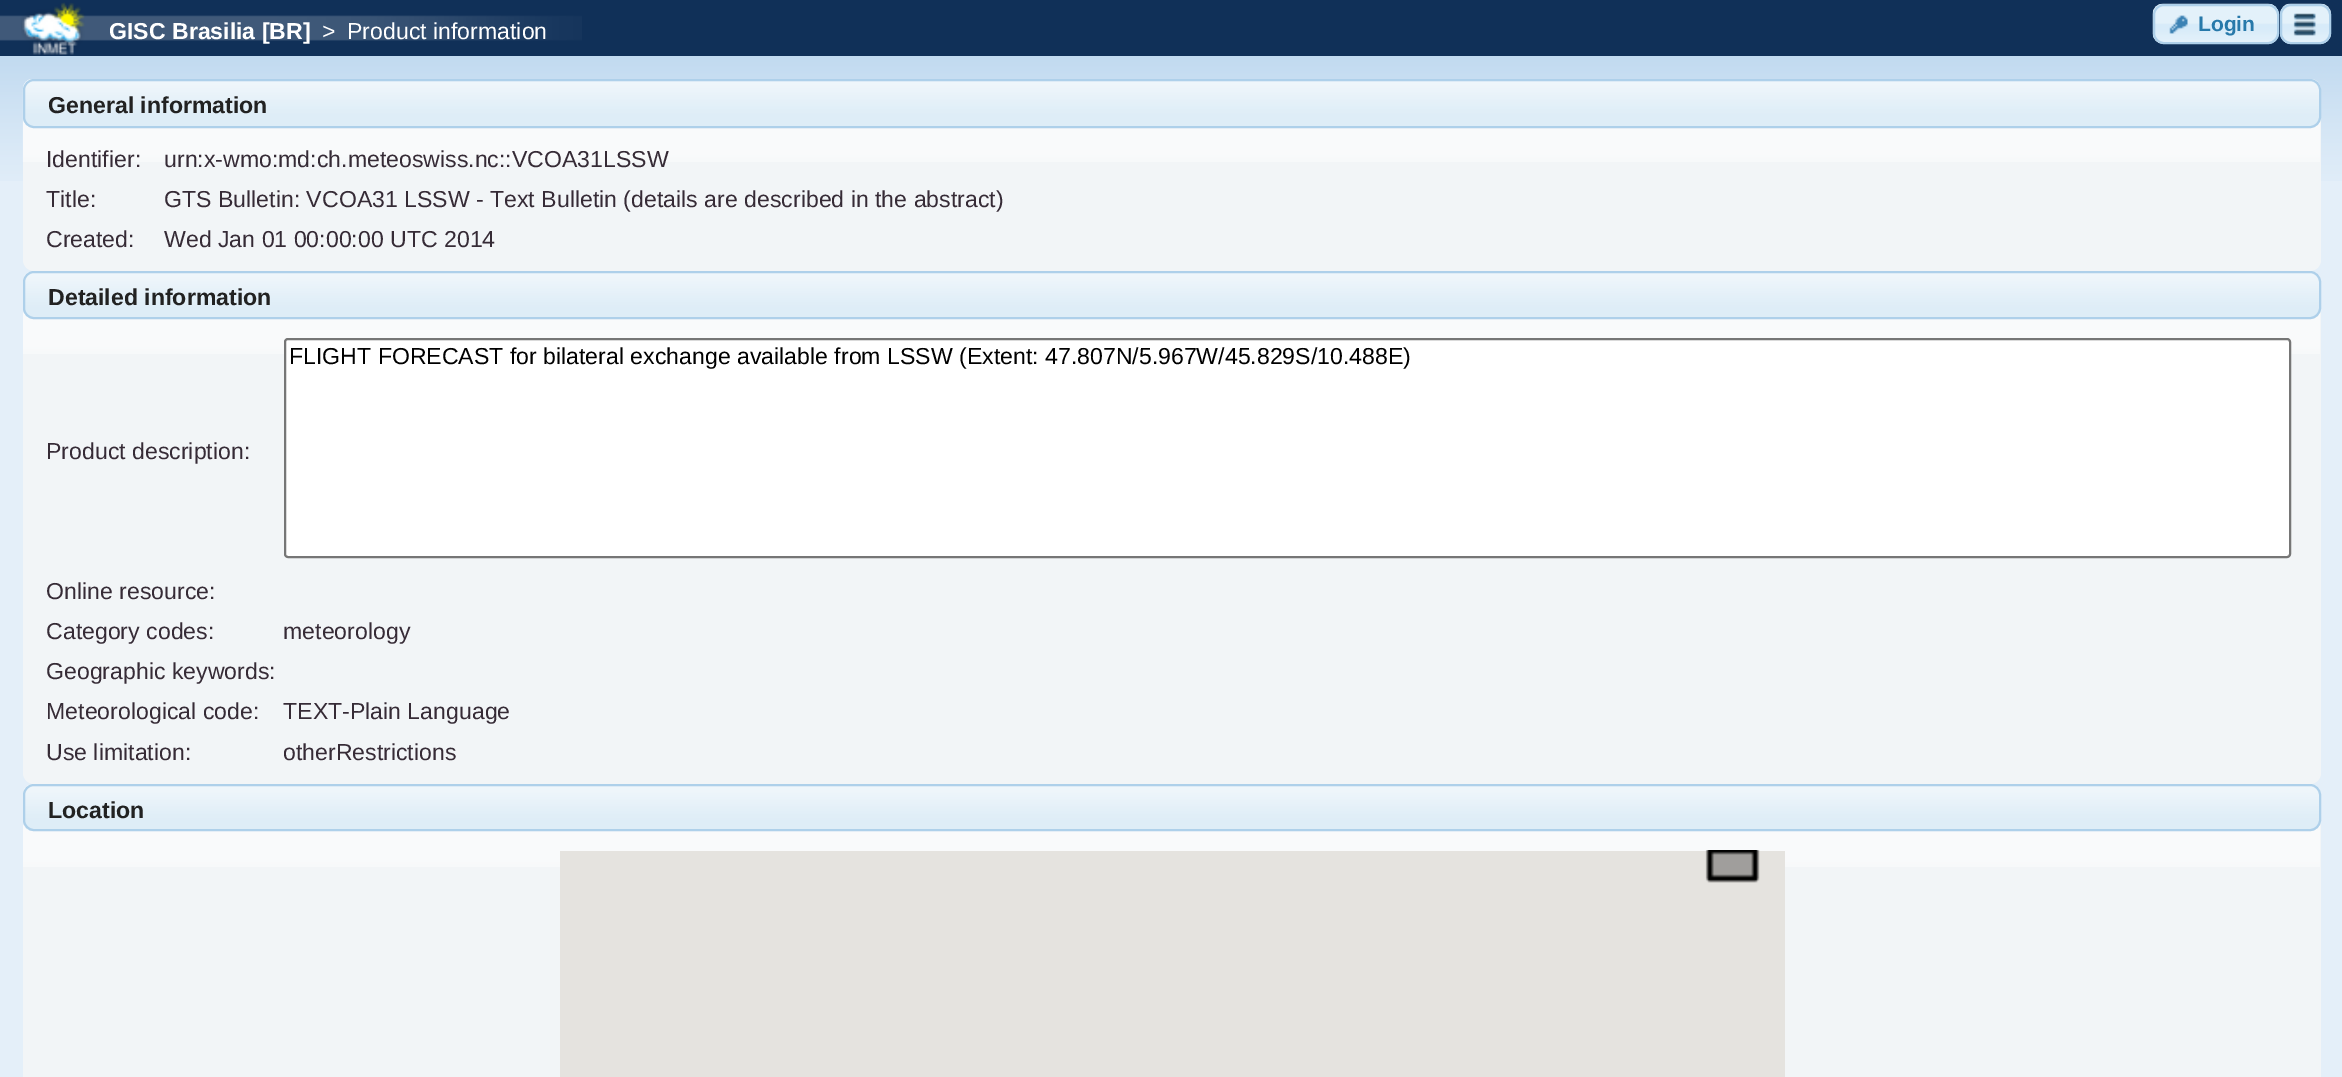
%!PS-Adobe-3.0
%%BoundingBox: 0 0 2342 1077
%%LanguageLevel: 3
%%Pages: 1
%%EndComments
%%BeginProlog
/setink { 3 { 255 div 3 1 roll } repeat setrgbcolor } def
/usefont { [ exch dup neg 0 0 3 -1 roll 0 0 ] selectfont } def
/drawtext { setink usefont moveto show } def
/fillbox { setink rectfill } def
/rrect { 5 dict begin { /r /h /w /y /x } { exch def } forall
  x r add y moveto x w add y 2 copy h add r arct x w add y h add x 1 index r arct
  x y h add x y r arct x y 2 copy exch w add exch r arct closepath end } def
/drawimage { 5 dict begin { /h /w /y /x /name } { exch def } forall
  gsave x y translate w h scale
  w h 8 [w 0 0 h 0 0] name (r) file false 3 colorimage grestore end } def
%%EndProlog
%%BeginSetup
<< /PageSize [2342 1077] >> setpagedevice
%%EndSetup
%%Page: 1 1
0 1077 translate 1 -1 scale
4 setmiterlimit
0 0 2342 1077 228 239 249 fillbox
(assets/img1.rgb) 0 56 2342 125 drawimage
0 0 2342 56 16 48 88 fillbox
(assets/img2.rgb) 0 15 582 26 drawimage
(assets/img3.rgb) 21 2 64 53 drawimage
(GISC Brasilia [BR]) 109 39 /LiberationSans-Bold 23.1 255 255 255 drawtext
(>) 322 39 /LiberationSans-Regular 23.1 255 255 255 drawtext
(Product information) 347 39 /LiberationSans-Regular 23.1 255 255 255 drawtext
(assets/img4.rgb) 2152 3 127 41 drawimage
174 208 234 setink
2 setlinewidth
2154 5 124 38 10 rrect stroke
(assets/img5.rgb) 2169 15 19 19 drawimage
(Login) 2198 31 /LiberationSans-Bold 21 39 121 170 drawtext
(assets/img6.rgb) 2280 3 51 41 drawimage
174 208 234 setink
2281 5 49 38 10 rrect stroke
(assets/img7.rgb) 2293 13 23 23 drawimage
242 245 247 setink
23 79 2298 192 11 rrect fill
(assets/img8.rgb) 22 79 2298 83 drawimage
(assets/img9.rgb) 23 79 2297 48 drawimage
174 208 234 setink
24 80 2296 47 10 rrect stroke
(General information) 48 113 /LiberationSans-Bold 23.1 34 34 34 drawtext
(Identifier:) 46 167 /LiberationSans-Regular 23.1 54 43 54 drawtext
(urn:x-wmo:md:ch.meteoswiss.nc::VCOA31LSSW) 164 167 /LiberationSans-Regular 23.1 54 43 54 drawtext
(Title:) 46 207 /LiberationSans-Regular 23.1 54 43 54 drawtext
(GTS Bulletin: VCOA31 LSSW - Text Bulletin \(details are described in the abstract\)) 164 207 /LiberationSans-Regular 23.1 54 43 54 drawtext
(Created:) 46 247 /LiberationSans-Regular 23.1 54 43 54 drawtext
(Wed Jan 01 00:00:00 UTC 2014) 164 247 /LiberationSans-Regular 23.1 54 43 54 drawtext
242 245 247 setink
23 271 2298 513 11 rrect fill
(assets/img10.rgb) 23 271 2297 83 drawimage
222 237 247 setink
23 271 2298 48 11 rrect fill
(assets/img11.rgb) 23 271 2297 45 drawimage
174 208 234 setink
24 272 2296 46 10 rrect stroke
(Detailed information) 48 305 /LiberationSans-Bold 23.1 34 34 34 drawtext
255 255 255 setink
285 339 2005 218 3 rrect gsave fill grestore
118 118 118 setink
stroke
(FLIGHT FORECAST for bilateral exchange available from LSSW \(Extent: 47.807N/5.967W/45.829S/10.488E\)) 289 364 /LiberationSans-Regular 23.1 0 0 0 drawtext
(Product description:) 46 459 /LiberationSans-Regular 23.1 54 43 54 drawtext
(Online resource:) 46 599 /LiberationSans-Regular 23.1 54 43 54 drawtext
(Category codes:) 46 639 /LiberationSans-Regular 23.1 54 43 54 drawtext
(meteorology) 283 639 /LiberationSans-Regular 23.1 54 43 54 drawtext
(Geographic keywords:) 46 679 /LiberationSans-Regular 23.1 54 43 54 drawtext
(Meteorological code:) 46 719 /LiberationSans-Regular 23.1 54 43 54 drawtext
(TEXT-Plain Language) 283 719 /LiberationSans-Regular 23.1 54 43 54 drawtext
(Use limitation:) 46 760 /LiberationSans-Regular 23.1 54 43 54 drawtext
(otherRestrictions) 283 760 /LiberationSans-Regular 23.1 54 43 54 drawtext
242 245 247 setink
23 784 2298 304 11 rrect fill
(assets/img12.rgb) 23 784 2297 83 drawimage
(assets/img13.rgb) 23 784 2297 47 drawimage
174 208 234 setink
24 785 2296 45 10 rrect stroke
(Location) 48 818 /LiberationSans-Bold 23.1 34 34 34 drawtext
560 851 1225 226 229 227 223 fillbox
(assets/img14.rgb) 1705 850 55 33 drawimage
showpage
%%EOF
